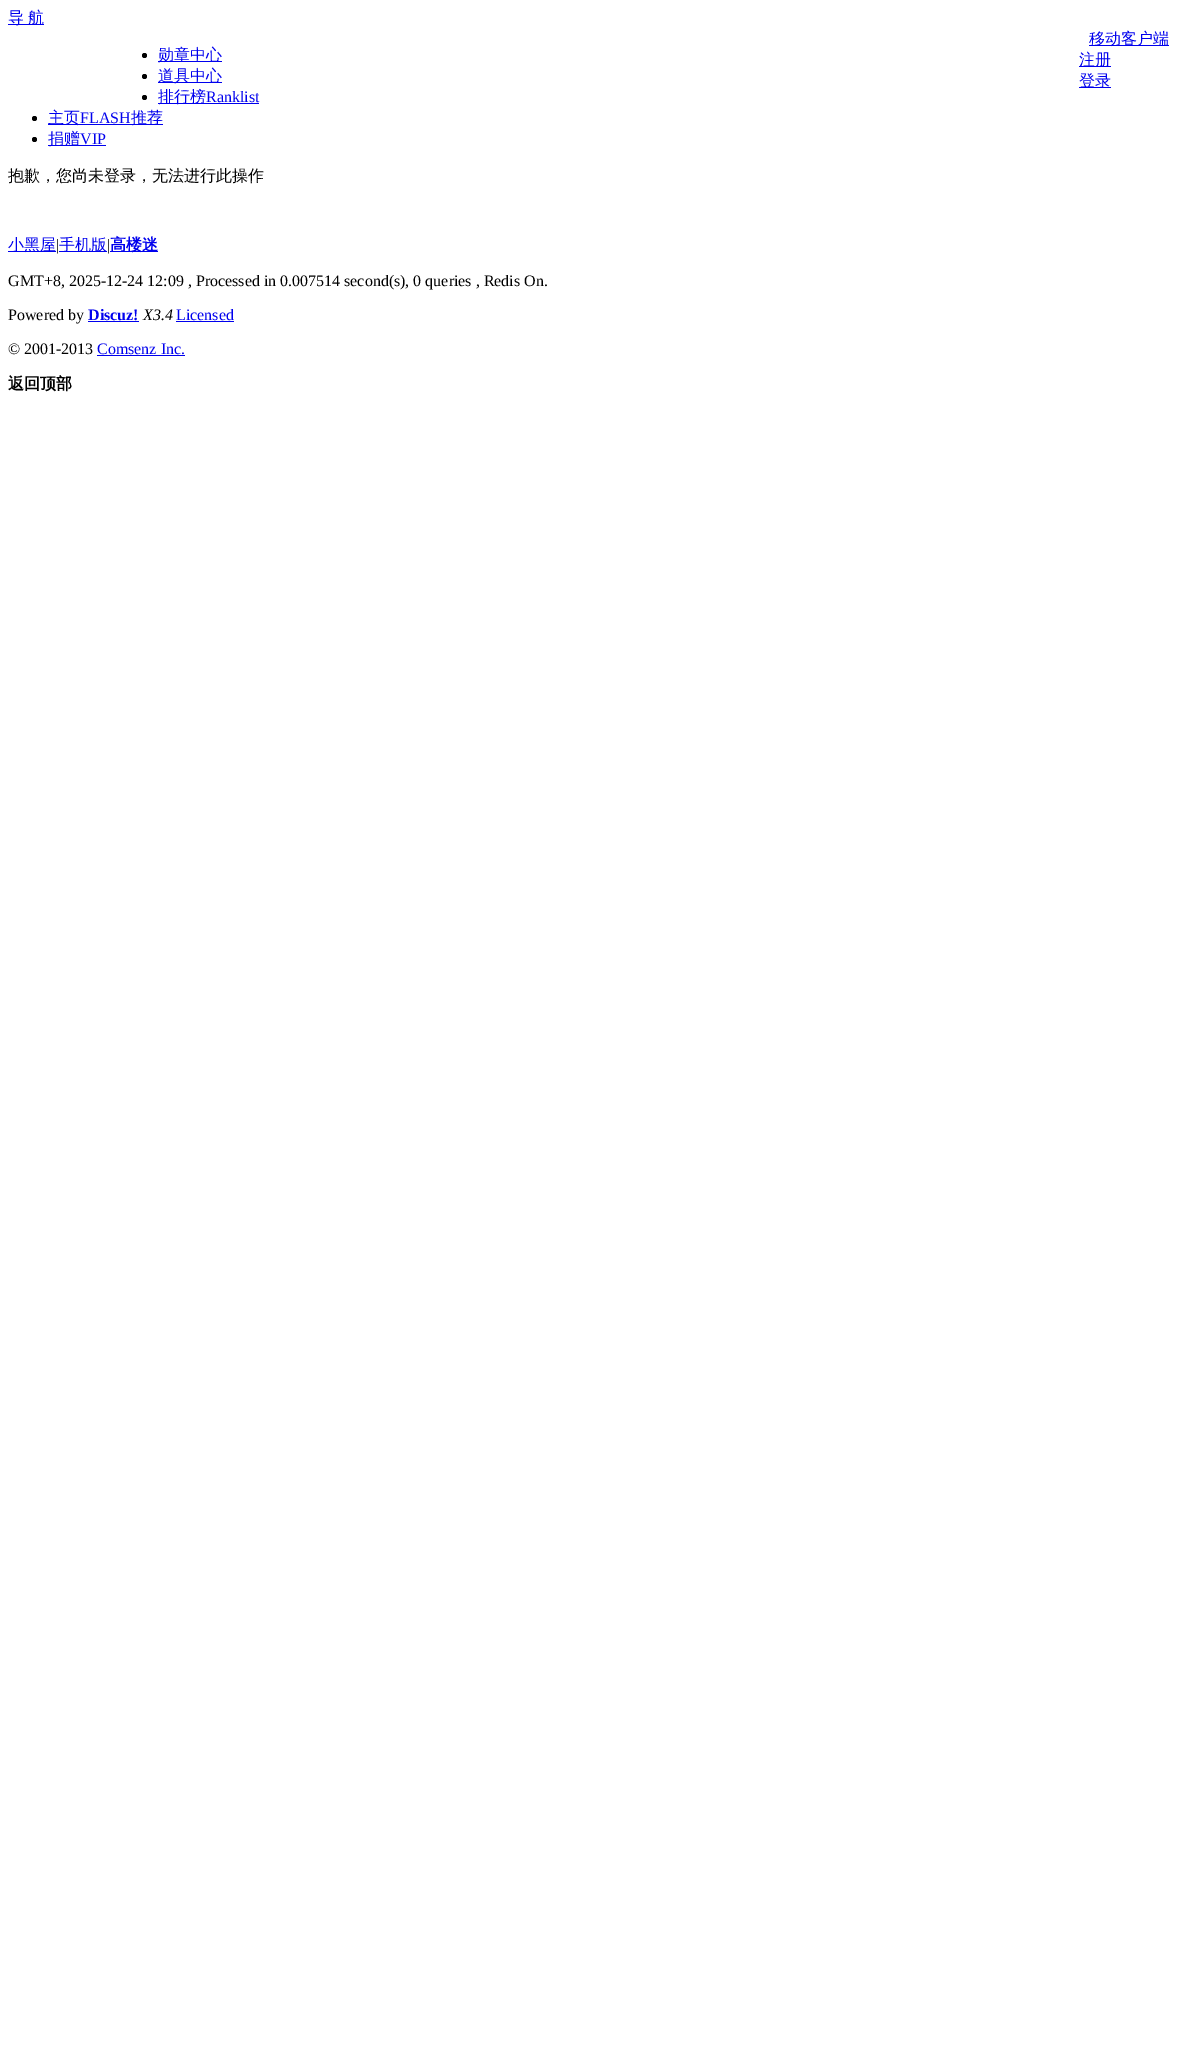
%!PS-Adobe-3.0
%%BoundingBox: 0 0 1187 2072
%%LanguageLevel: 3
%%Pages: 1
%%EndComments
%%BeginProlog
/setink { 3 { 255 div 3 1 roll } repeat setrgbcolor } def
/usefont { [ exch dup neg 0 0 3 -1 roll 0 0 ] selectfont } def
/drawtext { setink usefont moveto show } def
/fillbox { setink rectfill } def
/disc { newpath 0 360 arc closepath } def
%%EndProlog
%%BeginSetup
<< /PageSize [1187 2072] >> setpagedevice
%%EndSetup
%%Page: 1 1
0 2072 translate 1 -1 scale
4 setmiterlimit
0 0 1187 2072 255 255 255 fillbox
8 24 36 1 0 0 238 fillbox
/WenQuanYiZenHei-Medium 16 usefont
8 23 moveto -1 0 32 (导 航) widthshow
1089 45 80 1 0 0 238 fillbox
(移动客户端) 1089 44 /WenQuanYiZenHei-Medium 16 0 0 238 drawtext
1079 66 32 1 0 0 238 fillbox
(注册) 1079 65 /WenQuanYiZenHei-Medium 16 0 0 238 drawtext
1079 87 32 1 0 0 238 fillbox
(登录) 1079 86 /WenQuanYiZenHei-Medium 16 0 0 238 drawtext
0 0 0 setink
144.5 55.5 2.5 disc fill
158 61 64 1 0 0 238 fillbox
(勋章中心) 158 60 /WenQuanYiZenHei-Medium 16 0 0 238 drawtext
0 0 0 setink
144.5 76.5 2.5 disc fill
158 82 64 1 0 0 238 fillbox
(道具中心) 158 81 /WenQuanYiZenHei-Medium 16 0 0 238 drawtext
0 0 0 setink
144.5 97.5 2.5 disc fill
158 103 101 1 0 0 238 fillbox
(排行榜) 158 102 /WenQuanYiZenHei-Medium 16 0 0 238 drawtext
(Ranklist) 206 102 /LiberationSerif-Regular 16 0 0 238 drawtext
0 0 0 setink
34.5 118.5 2.5 disc fill
48 124 115 1 0 0 238 fillbox
(主页) 48 123 /WenQuanYiZenHei-Medium 16 0 0 238 drawtext
(FLASH) 80 123 /LiberationSerif-Regular 16 0 0 238 drawtext
(推荐) 131 123 /WenQuanYiZenHei-Medium 16 0 0 238 drawtext
0 0 0 setink
34.5 139.5 2.5 disc fill
48 145 58 1 0 0 238 fillbox
(捐赠) 48 144 /WenQuanYiZenHei-Medium 16 0 0 238 drawtext
(VIP) 80 144 /LiberationSerif-Regular 16 0 0 238 drawtext
(抱歉，您尚未登录，无法进行此操作) 8 181 /WenQuanYiZenHei-Medium 16 0 0 0 drawtext
8 251 48 1 0 0 238 fillbox
(小黑屋) 8 250 /WenQuanYiZenHei-Medium 16 0 0 238 drawtext
(|) 56 250 /LiberationSerif-Regular 16 0 0 0 drawtext
59 251 48 1 0 0 238 fillbox
(手机版) 59 250 /WenQuanYiZenHei-Medium 16 0 0 238 drawtext
(|) 107 250 /LiberationSerif-Regular 16 0 0 0 drawtext
110 251 48 1 0 0 238 fillbox
(高楼迷) 110 250 /WenQuanYiZenHei-Bold 16 0 0 238 drawtext
(GMT+8, 2025-12-24 12:09 , Processed in 0.007514 second\(s\), 0 queries , Redis On.) 8 286 /LiberationSerif-Regular 16 0 0 0 drawtext
(Powered by) 8 320 /LiberationSerif-Regular 16 0 0 0 drawtext
(Discuz!) 88 320 /LiberationSerif-Bold 16 0 0 238 drawtext
88 321 51 1 0 0 238 fillbox
(X3.4) 143 320 /LiberationSerif-Italic 16 0 0 0 drawtext
(Licensed) 176 320 /LiberationSerif-Regular 16 0 0 238 drawtext
176 321 58 1 0 0 238 fillbox
(© 2001-2013) 8 354 /LiberationSerif-Regular 16 0 0 0 drawtext
(Comsenz Inc.) 97 354 /LiberationSerif-Regular 16 0 0 238 drawtext
97 355 88 1 0 0 238 fillbox
(返回顶部) 8 389 /WenQuanYiZenHei-Bold 16 0 0 0 drawtext
showpage
%%EOF
